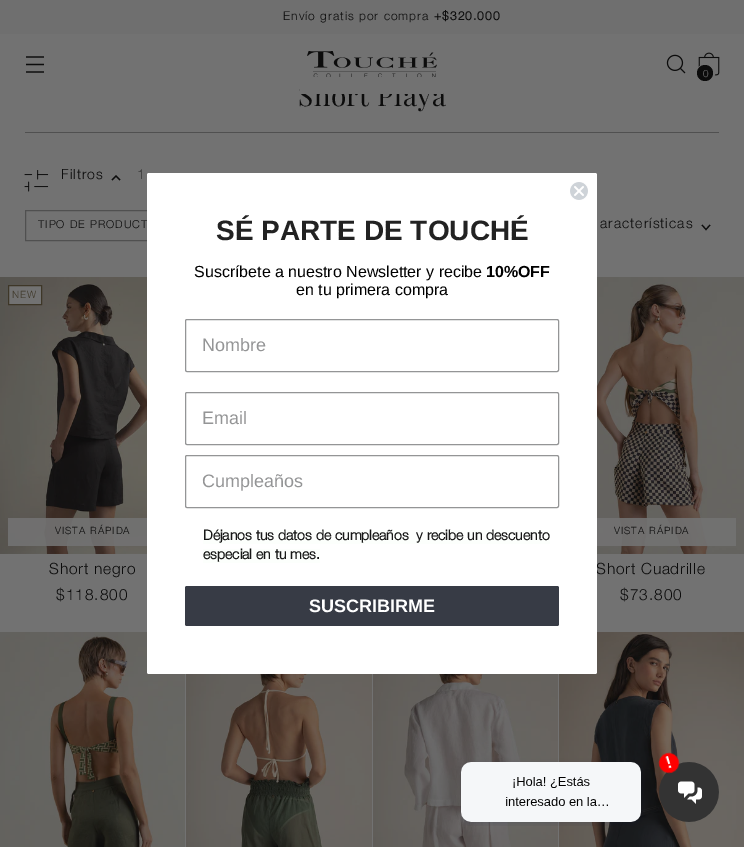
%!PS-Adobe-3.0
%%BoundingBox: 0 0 744 847
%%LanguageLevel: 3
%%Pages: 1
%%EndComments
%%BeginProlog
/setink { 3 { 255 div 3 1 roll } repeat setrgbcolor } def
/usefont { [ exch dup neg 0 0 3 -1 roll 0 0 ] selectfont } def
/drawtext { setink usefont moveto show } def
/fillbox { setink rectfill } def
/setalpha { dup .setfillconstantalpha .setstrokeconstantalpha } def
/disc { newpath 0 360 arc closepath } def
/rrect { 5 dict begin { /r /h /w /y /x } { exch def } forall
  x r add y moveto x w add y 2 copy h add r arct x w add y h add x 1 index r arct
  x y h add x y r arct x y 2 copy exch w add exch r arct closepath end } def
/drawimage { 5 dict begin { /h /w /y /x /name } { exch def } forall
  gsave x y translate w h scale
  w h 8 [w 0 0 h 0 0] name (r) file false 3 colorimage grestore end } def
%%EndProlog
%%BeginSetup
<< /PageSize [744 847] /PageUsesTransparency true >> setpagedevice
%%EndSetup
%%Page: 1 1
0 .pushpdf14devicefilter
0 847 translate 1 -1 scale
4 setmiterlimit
0 0 744 847 114 114 114 fillbox
0 0 744 34 111 111 111 fillbox
/HelveticaNeue-Light 12 usefont
12 12 12 setink
283 20 moveto 1 0 (Envío gratis por compra) ashow
/HelveticaNeue-Bold 12 usefont
434 20 moveto 1 0 (+$320.000) ashow
/PlayfairDisplay-Regular 28 usefont
298 106 moveto 0.5 0 (Short Playa) ashow
300 84 143 10 114 114 114 fillbox
12 12 12 setink
1.3 setlinewidth
26 64.5 moveto 44 64.5 lineto 26 57 moveto 44 57 lineto 26 72 moveto 44 72 lineto stroke
(assets/img1.rgb) 307 51 130 26 drawimage
(assets/img2.rgb) 666 54 20 20 drawimage
(assets/img3.rgb) 698 52 22 24 drawimage
114 114 114 setink
2 setlinewidth
705.5 73.5 8.5 disc stroke
12 12 12 setink
705 73 8 disc fill
(0) 703 77 /HelveticaNeue-Light 10 114 114 114 drawtext
25 132 694 1 80 80 80 fillbox
(assets/img4.rgb) 24 170 25 22 drawimage
/HelveticaNeue-Light 14 usefont
12 12 12 setink
61 179 moveto 1 0 (Filtros) ashow
1.1 setlinewidth
112 180 moveto 116 176 lineto 120 180 lineto stroke
53 53 53 setink
137 179 moveto 1 0 (1) ashow
80 80 80 setink
1 setlinewidth
25.5 210.5 162 30 rectstroke
/HelveticaNeue-Light 11 usefont
12 12 12 setink
38 228 moveto 1 0 (TIPO DE PRODUCT) ashow
/HelveticaNeue-Light 14 usefont
600 228 moveto 1 0 (aracterísticas) ashow
1.1 setlinewidth
702 225 moveto 706 229.5 lineto 710 225 lineto stroke
(assets/img5.rgb) 0 277 147 277 drawimage
114 114 114 setink
8.5 285.5 moveto 41.5 285.5 lineto 41.5 304.5 lineto 8.5 304.5 lineto closepath gsave fill grestore
62 55 40 setink
1 setlinewidth
stroke
/HelveticaNeue-Light 10 usefont
12 298 moveto 1 0 (NEW) ashow
0.9 setalpha
8 518 139 28 114 114 114 fillbox
1 setalpha
12 12 12 setink
55 534 moveto 1 0 (VISTA RÁPIDA) ashow
/HelveticaNeue-Light 15.5 usefont
49 574 moveto 0.75 0 (Short negro) ashow
56 600 moveto 1 0 ($118.800) ashow
(assets/img6.rgb) 597 277 147 277 drawimage
0.9 setalpha
597 518 139 28 114 114 114 fillbox
/HelveticaNeue-Light 10 usefont
1 setalpha
12 12 12 setink
614 534 moveto 1 0 (VISTA RÁPIDA) ashow
/HelveticaNeue-Light 15.5 usefont
596 574 moveto 0.75 0 (Short Cuadrille) ashow
620 600 moveto 1 0 ($73.800) ashow
(assets/img7.rgb) 0 632 185 215 drawimage
(assets/img8.rgb) 186 674 186 173 drawimage
(assets/img9.rgb) 373 674 185 173 drawimage
(assets/img10.rgb) 559 632 185 215 drawimage
255 255 255 setink
147 173 450 501 2 rrect fill
(assets/img11.rgb) 570 182 18 18 drawimage
(SÉ PARTE DE TOUCHÉ) 216 240 /LiberationSans-Bold 28 34 34 34 drawtext
(Suscríbete a nuestro Newsletter y recibe) 194 277 /LiberationSans-Regular 16 0 0 0 drawtext
(10%OFF) 486 277 /LiberationSans-Bold 16 0 0 0 drawtext
(en tu primera compra) 296 295 /LiberationSans-Regular 16 0 0 0 drawtext
148 149 150 setink
185.5 319.5 373 52 1.5 rrect stroke
(Nombre) 202 351 /LiberationSans-Regular 18 148 149 150 drawtext
185.5 392.5 373 52 1.5 rrect stroke
(Email) 202 424 /LiberationSans-Regular 18 148 149 150 drawtext
185.5 455.5 373 52 1.5 rrect stroke
(Cumpleaños) 202 487 /LiberationSans-Regular 18 148 149 150 drawtext
203 530 347 14 252 255 252 fillbox
(Déjanos tus datos de cumpleaños  y recibe un descuento) 203 540 /HelveticaNeue-Bold 14 23 24 23 drawtext
203 549 117 14 252 255 252 fillbox
(especial en tu mes.) 203 559 /HelveticaNeue-Bold 14 23 24 23 drawtext
55 59 69 setink
185 586 374 40 2 rrect fill
(SUSCRIBIRME) 309 612 /LiberationSans-Bold 18 255 255 255 drawtext
(assets/img12.rgb) 460 752 259 74 drawimage
.poppdf14devicefilter showpage
%%EOF
